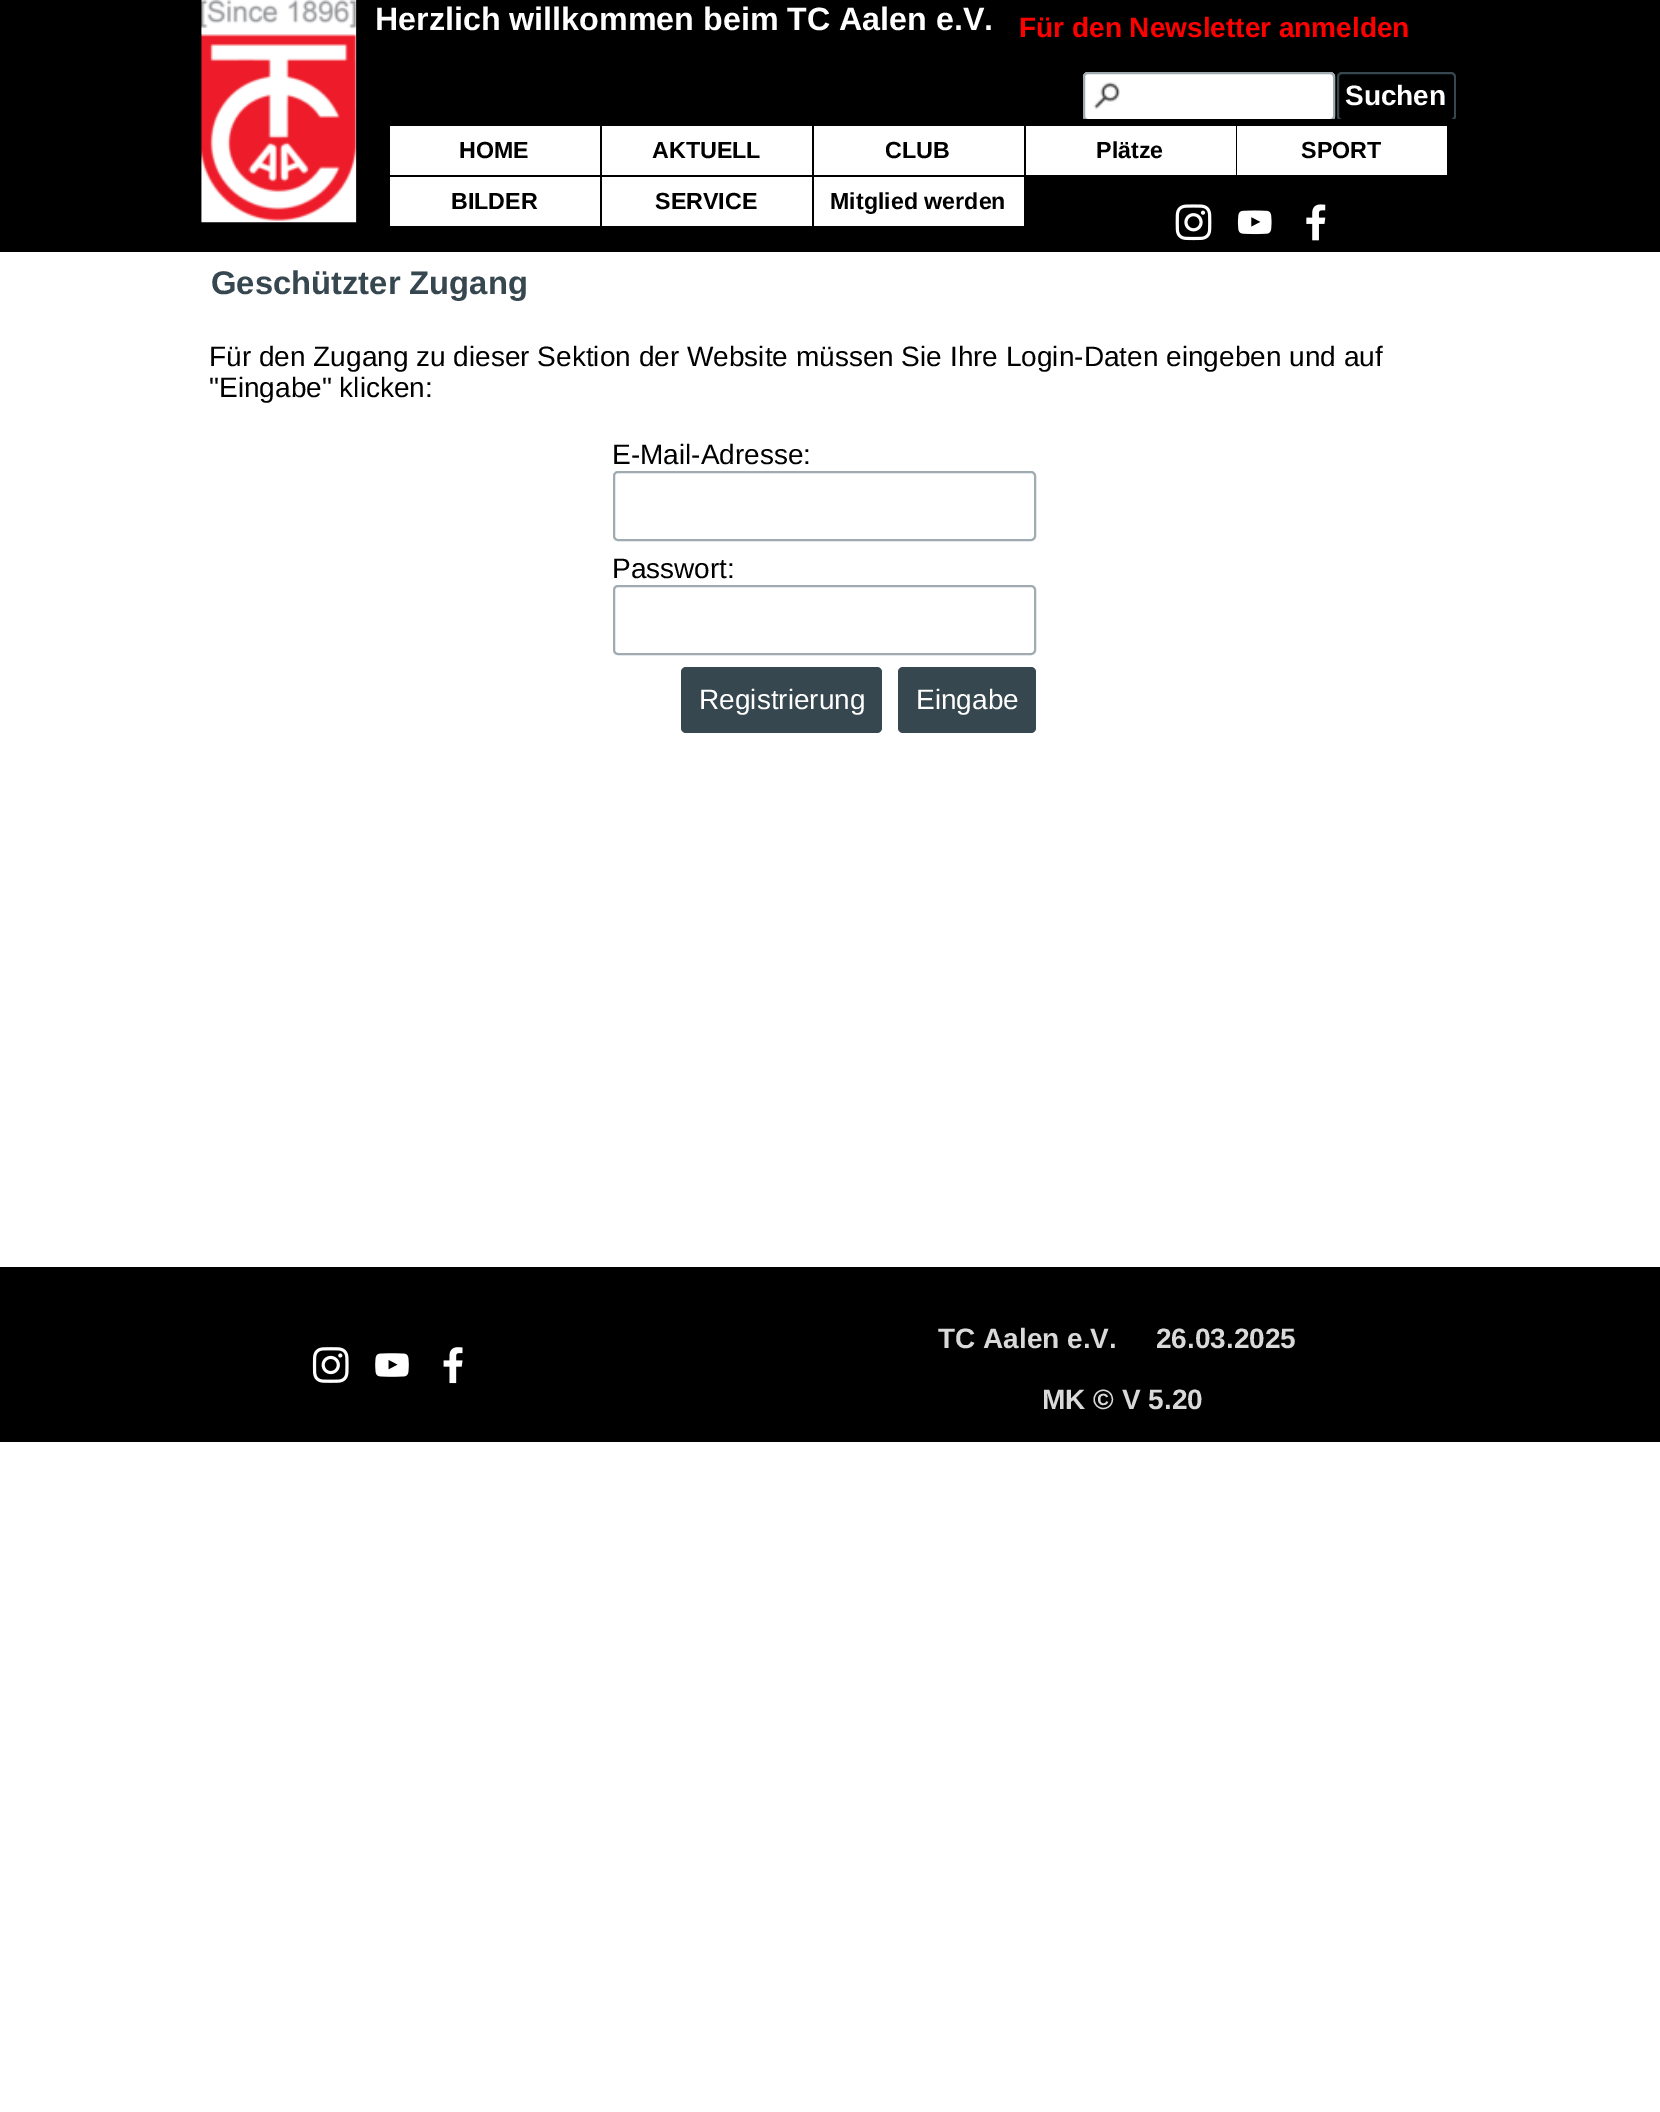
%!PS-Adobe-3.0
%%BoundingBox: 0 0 1660 2112
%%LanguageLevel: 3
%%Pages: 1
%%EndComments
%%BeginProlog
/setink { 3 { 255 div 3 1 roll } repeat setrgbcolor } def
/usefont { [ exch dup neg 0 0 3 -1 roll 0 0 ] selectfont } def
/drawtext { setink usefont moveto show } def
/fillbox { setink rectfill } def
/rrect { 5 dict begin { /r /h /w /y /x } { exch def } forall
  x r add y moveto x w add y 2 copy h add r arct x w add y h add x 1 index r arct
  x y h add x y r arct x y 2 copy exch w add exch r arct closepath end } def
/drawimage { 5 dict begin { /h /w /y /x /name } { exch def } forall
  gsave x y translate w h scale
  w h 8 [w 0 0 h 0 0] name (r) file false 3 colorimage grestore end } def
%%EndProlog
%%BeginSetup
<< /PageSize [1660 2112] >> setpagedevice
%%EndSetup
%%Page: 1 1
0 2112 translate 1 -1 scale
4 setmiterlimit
0 0 1660 2112 255 255 255 fillbox
0 0 1660 252 0 0 0 fillbox
(assets/img1.rgb) 201 0 156 223 drawimage
(Herzlich willkommen beim TC Aalen e.V.) 375 30 /LiberationSans-Bold 32.25 255 255 255 drawtext
(Für den Newsletter anmelden) 1019 37 /LiberationSans-Bold 28 255 0 0 drawtext
gsave
1083 72 373 47 rectclip
255 255 255 setink
1083 72 252 49 5 rrect fill
grestore
(assets/img2.rgb) 1093 82 27 27 drawimage
gsave
1083 72 373 47 rectclip
159 171 176 setink
2 setlinewidth
1084 73 250 47 4 rrect stroke
55 71 79 setink
1338 73 117 47 4 rrect stroke
grestore
(Suchen) 1345 105 /LiberationSans-Bold 28 255 255 255 drawtext
390 126 210 49 255 255 255 fillbox
(HOME) 459 158 /LiberationSans-Bold 23.25 0 0 0 drawtext
602 126 210 49 255 255 255 fillbox
(AKTUELL) 652 158 /LiberationSans-Bold 23.25 0 0 0 drawtext
814 126 210 49 255 255 255 fillbox
(CLUB) 885 158 /LiberationSans-Bold 23.25 0 0 0 drawtext
1026 126 210 49 255 255 255 fillbox
(Plätze) 1096 158 /LiberationSans-Bold 23.25 0 0 0 drawtext
1237 126 210 49 255 255 255 fillbox
(SPORT) 1301 158 /LiberationSans-Bold 23.25 0 0 0 drawtext
390 177 210 49 255 255 255 fillbox
(BILDER) 451 209 /LiberationSans-Bold 23.25 0 0 0 drawtext
602 177 210 49 255 255 255 fillbox
(SERVICE) 655 209 /LiberationSans-Bold 23.25 0 0 0 drawtext
814 177 210 49 255 255 255 fillbox
(Mitglied werden) 830 209 /LiberationSans-Bold 23.25 0 0 0 drawtext
(assets/img3.rgb) 1175 204 37 37 drawimage
(assets/img4.rgb) 1237 210 35 25 drawimage
(assets/img5.rgb) 1306 204 20 37 drawimage
(Geschützter Zugang) 211 294 /LiberationSans-Bold 32.75 54 71 79 drawtext
(Für den Zugang zu dieser Sektion der Website müssen Sie Ihre Login-Daten eingeben und auf) 209 366 /LiberationSans-Regular 28 0 0 0 drawtext
("Eingabe" klicken:) 209 397 /LiberationSans-Regular 28 0 0 0 drawtext
(E-Mail-Adresse:) 612 464 /LiberationSans-Regular 28 0 0 0 drawtext
159 171 176 setink
2 setlinewidth
614 472 421 68 4 rrect stroke
(Passwort:) 612 578 /LiberationSans-Regular 28 0 0 0 drawtext
159 171 176 setink
614 586 421 68 4 rrect stroke
54 71 79 setink
681 667 201 66 5 rrect fill
(Registrierung) 699 709 /LiberationSans-Regular 28 255 255 255 drawtext
54 71 79 setink
898 667 138 66 5 rrect fill
(Eingabe) 916 709 /LiberationSans-Regular 28 255 255 255 drawtext
0 1267 1660 175 0 0 0 fillbox
(TC Aalen e.V.     26.03.2025) 938 1348 /LiberationSans-Bold 28 217 217 217 drawtext
(assets/img6.rgb) 312 1347 37 36 drawimage
(assets/img7.rgb) 375 1353 34 24 drawimage
(assets/img8.rgb) 443 1347 20 37 drawimage
(MK © V 5.20) 1042 1409 /LiberationSans-Bold 28 217 217 217 drawtext
showpage
%%EOF
